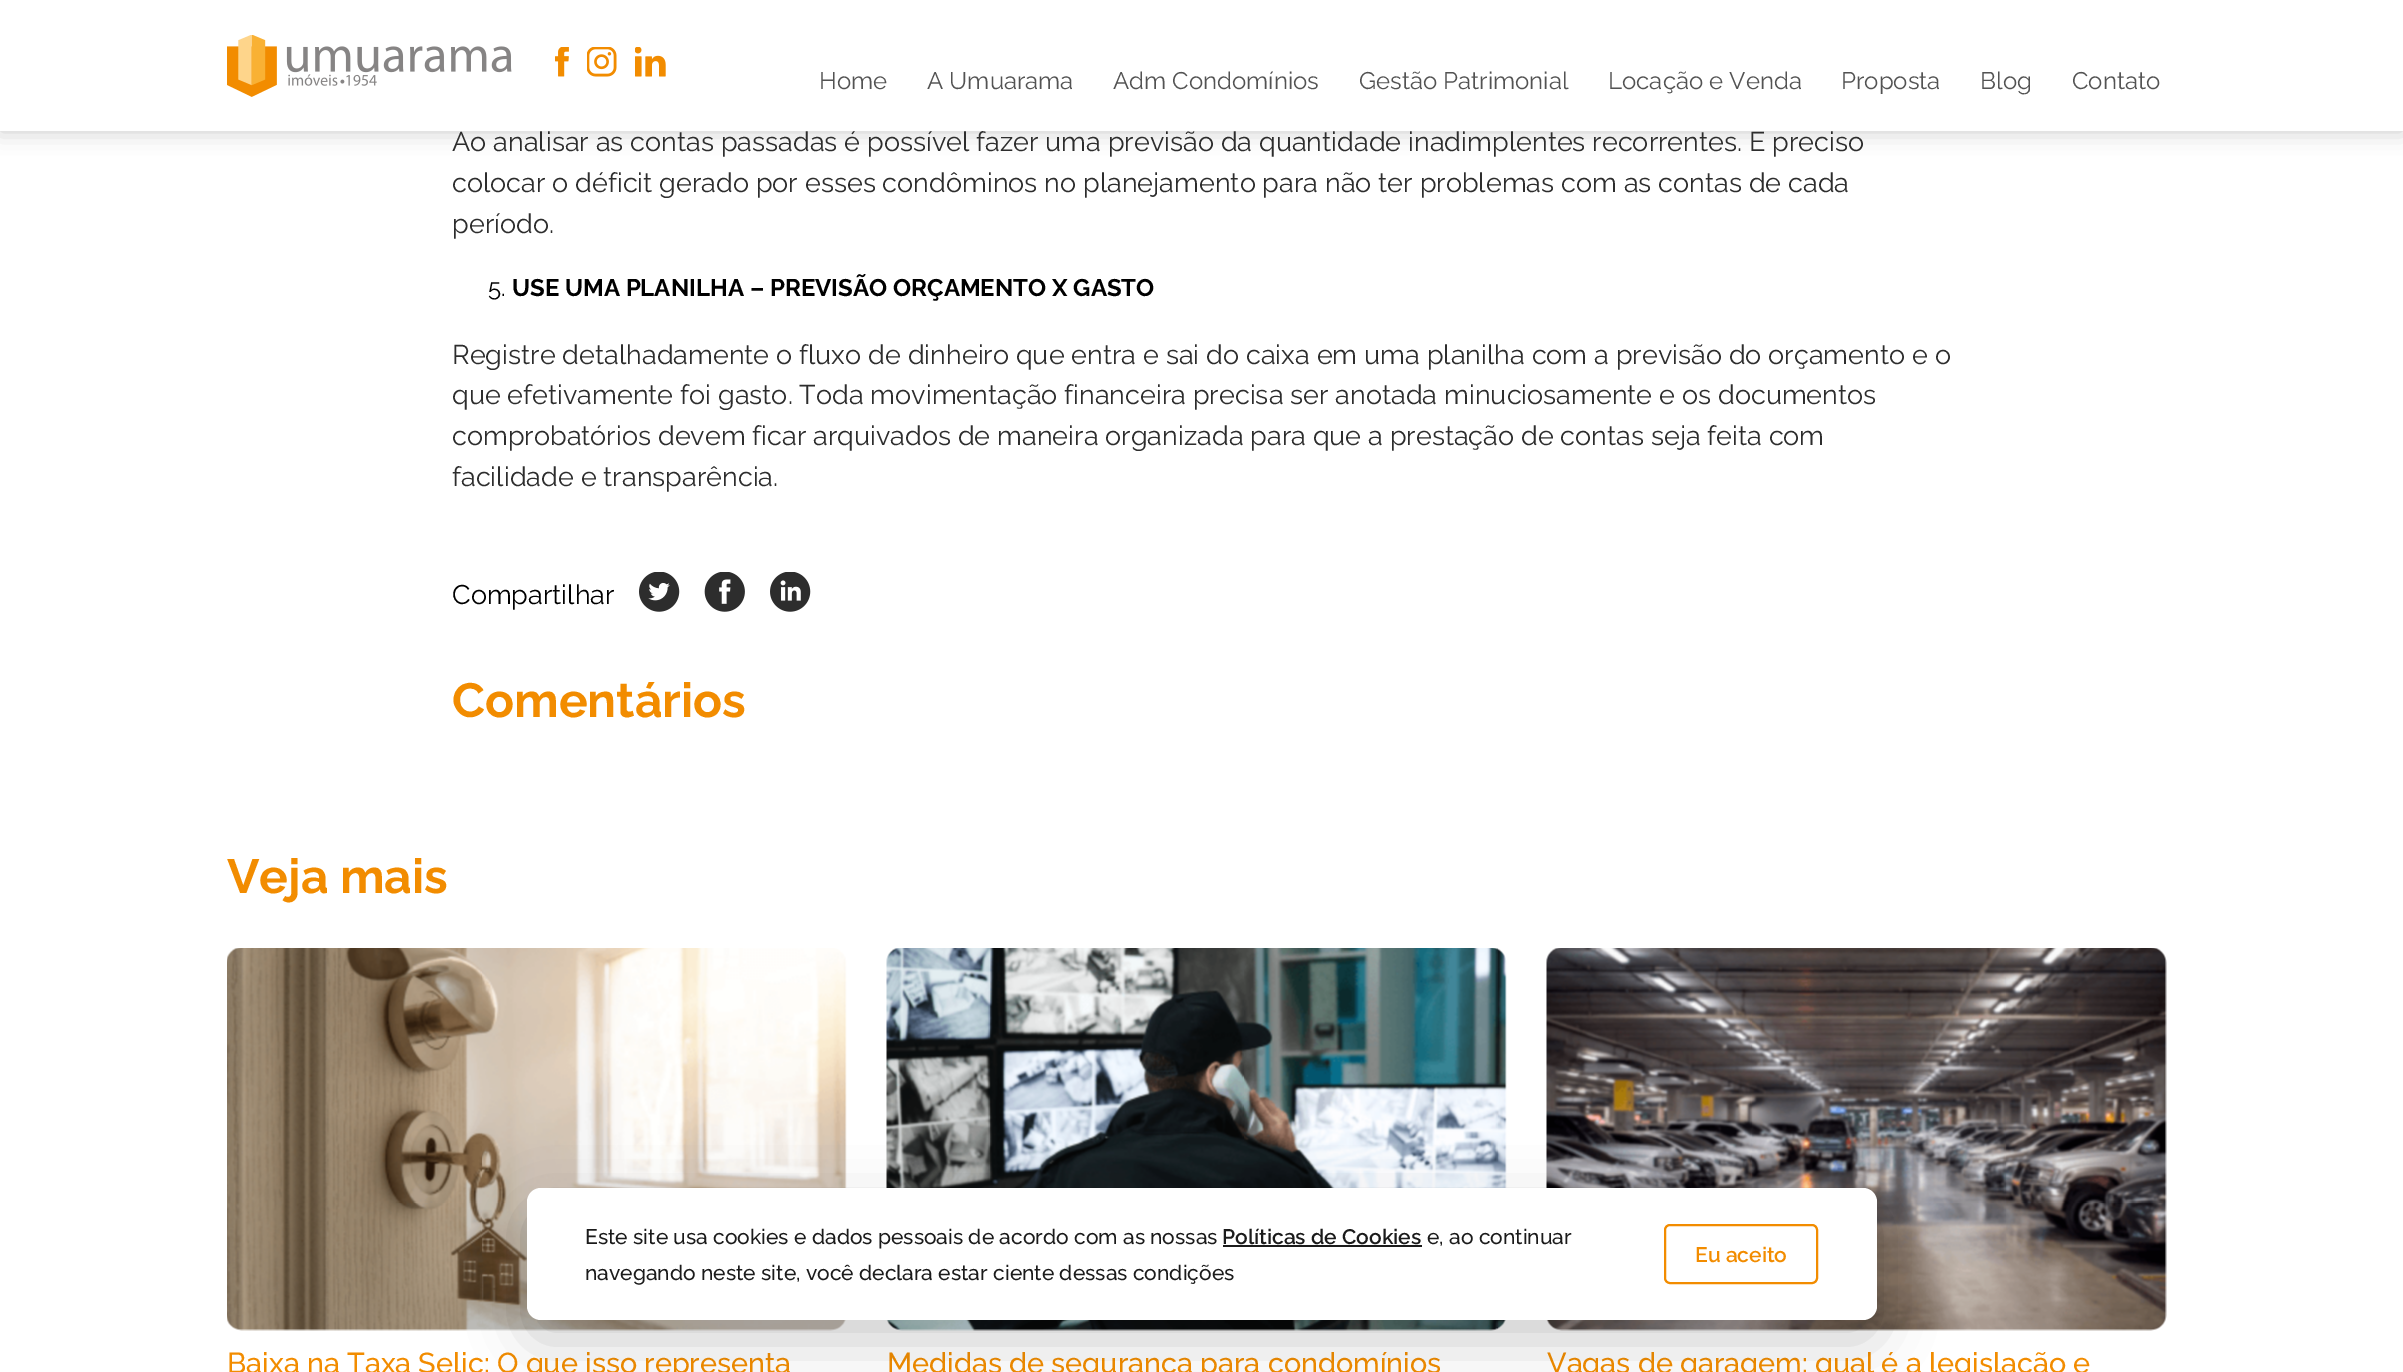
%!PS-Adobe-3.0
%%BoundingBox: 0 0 2403 1372
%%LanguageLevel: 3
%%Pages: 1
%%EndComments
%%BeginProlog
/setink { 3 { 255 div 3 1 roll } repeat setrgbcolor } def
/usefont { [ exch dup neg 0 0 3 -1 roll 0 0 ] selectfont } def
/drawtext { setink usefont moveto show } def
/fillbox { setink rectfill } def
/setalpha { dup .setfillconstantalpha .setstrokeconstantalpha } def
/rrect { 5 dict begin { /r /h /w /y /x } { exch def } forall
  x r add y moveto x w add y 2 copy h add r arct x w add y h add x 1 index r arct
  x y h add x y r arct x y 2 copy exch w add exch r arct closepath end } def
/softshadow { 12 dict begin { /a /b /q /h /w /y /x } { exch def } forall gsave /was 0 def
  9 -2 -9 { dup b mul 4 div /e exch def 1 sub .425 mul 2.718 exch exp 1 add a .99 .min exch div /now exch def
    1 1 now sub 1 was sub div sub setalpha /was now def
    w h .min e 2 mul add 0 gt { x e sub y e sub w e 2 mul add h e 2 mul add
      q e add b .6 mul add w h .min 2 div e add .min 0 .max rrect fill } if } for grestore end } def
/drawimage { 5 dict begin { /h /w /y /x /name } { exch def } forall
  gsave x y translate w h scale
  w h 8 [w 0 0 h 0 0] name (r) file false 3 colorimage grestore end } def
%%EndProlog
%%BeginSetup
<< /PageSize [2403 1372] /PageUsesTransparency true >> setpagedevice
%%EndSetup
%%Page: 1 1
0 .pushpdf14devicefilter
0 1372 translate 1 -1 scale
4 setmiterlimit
0 0 2403 1372 255 255 255 fillbox
0 0 0 setink
0 0 2403 131 0 11 0.22 softshadow
(Ao analisar as contas passadas é possível fazer uma previsão da quantidade inadimplentes recorrentes. É preciso) 452 151 /Raleway-Regular 27 45 45 45 drawtext
0 0 2403 131 255 255 255 fillbox
(assets/img1.rgb) 227 35 285 62 drawimage
(assets/img2.rgb) 555 47 14 30 drawimage
(assets/img3.rgb) 587 47 30 30 drawimage
(assets/img4.rgb) 635 47 31 30 drawimage
(Home) 819 89 /Raleway-Regular 24 83 83 83 drawtext
(A Umuarama) 927 89 /Raleway-Regular 24 83 83 83 drawtext
(Adm Condomínios) 1113 89 /Raleway-Regular 24 83 83 83 drawtext
(Gestão Patrimonial) 1359 89 /Raleway-Regular 24 83 83 83 drawtext
(Locação e Venda) 1608 89 /Raleway-Regular 24 83 83 83 drawtext
(Proposta) 1841 89 /Raleway-Regular 24 83 83 83 drawtext
(Blog) 1980 89 /Raleway-Regular 24 83 83 83 drawtext
(Contato) 2072 89 /Raleway-Regular 24 83 83 83 drawtext
(colocar o déficit gerado por esses condôminos no planejamento para não ter problemas com as contas de cada) 452 192 /Raleway-Regular 27 45 45 45 drawtext
(período.) 452 233 /Raleway-Regular 27 45 45 45 drawtext
(5.) 488 296 /Raleway-Regular 24 0 0 0 drawtext
(USE UMA PLANILHA – PREVISÃO ORÇAMENTO X GASTO) 512 296 /Raleway-Bold 24 0 0 0 drawtext
(Registre detalhadamente o fluxo de dinheiro que entra e sai do caixa em uma planilha com a previsão do orçamento e o) 452 364 /Raleway-Regular 27 45 45 45 drawtext
(que efetivamente foi gasto. Toda movimentação financeira precisa ser anotada minuciosamente e os documentos) 452 404 /Raleway-Regular 27 45 45 45 drawtext
(comprobatórios devem ficar arquivados de maneira organizada para que a prestação de contas seja feita com) 452 445 /Raleway-Regular 27 45 45 45 drawtext
(facilidade e transparência.) 452 486 /Raleway-Regular 27 45 45 45 drawtext
(Compartilhar) 452 604 /Raleway-Regular 27 0 0 0 drawtext
(assets/img5.rgb) 639 572 41 40 drawimage
(assets/img6.rgb) 704 572 41 40 drawimage
(assets/img7.rgb) 770 572 41 40 drawimage
(Comentários) 452 717 /Raleway-Bold 48 242 140 0 drawtext
(Veja mais) 227 893 /Raleway-Bold 48 242 140 0 drawtext
(assets/img8.rgb) 227 948 620 383 drawimage
(Baixa na Taxa Selic: O que isso representa) 227 1373 /Raleway-Medium 28.75 242 140 0 drawtext
(assets/img9.rgb) 886 948 621 383 drawimage
(Medidas de segurança para condomínios) 887 1373 /Raleway-Medium 28.75 242 140 0 drawtext
(assets/img10.rgb) 1546 948 621 383 drawimage
(Vagas de garagem: qual é a legislação e) 1547 1373 /Raleway-Medium 28.75 242 140 0 drawtext
0 0 0 setink
527 1208 1350 132 14 28 0.2 softshadow
255 255 255 setink
527 1188 1350 132 14 rrect fill
(Este site usa cookies e dados pessoais de acordo com as nossas) 585 1244 /Raleway-Medium 21 27 27 27 drawtext
(Políticas de Cookies) 1222 1244 /Raleway-SemiBold 21 27 27 27 drawtext
1223 1245 199 2 27 27 27 fillbox
(e, ao continuar) 1427 1244 /Raleway-Medium 21 27 27 27 drawtext
(navegando neste site, você declara estar ciente dessas condições) 585 1280 /Raleway-Medium 21 27 27 27 drawtext
242 140 0 setink
2 setlinewidth
1665 1225 152 58 5 rrect stroke
(Eu aceito) 1695 1262 /Raleway-SemiBold 21 242 140 0 drawtext
.poppdf14devicefilter showpage
%%EOF
